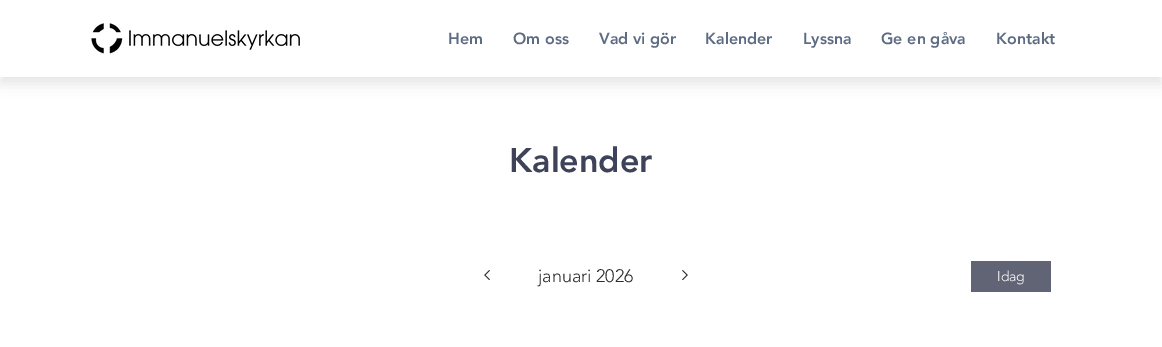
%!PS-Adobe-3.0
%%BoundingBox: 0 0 1162 347
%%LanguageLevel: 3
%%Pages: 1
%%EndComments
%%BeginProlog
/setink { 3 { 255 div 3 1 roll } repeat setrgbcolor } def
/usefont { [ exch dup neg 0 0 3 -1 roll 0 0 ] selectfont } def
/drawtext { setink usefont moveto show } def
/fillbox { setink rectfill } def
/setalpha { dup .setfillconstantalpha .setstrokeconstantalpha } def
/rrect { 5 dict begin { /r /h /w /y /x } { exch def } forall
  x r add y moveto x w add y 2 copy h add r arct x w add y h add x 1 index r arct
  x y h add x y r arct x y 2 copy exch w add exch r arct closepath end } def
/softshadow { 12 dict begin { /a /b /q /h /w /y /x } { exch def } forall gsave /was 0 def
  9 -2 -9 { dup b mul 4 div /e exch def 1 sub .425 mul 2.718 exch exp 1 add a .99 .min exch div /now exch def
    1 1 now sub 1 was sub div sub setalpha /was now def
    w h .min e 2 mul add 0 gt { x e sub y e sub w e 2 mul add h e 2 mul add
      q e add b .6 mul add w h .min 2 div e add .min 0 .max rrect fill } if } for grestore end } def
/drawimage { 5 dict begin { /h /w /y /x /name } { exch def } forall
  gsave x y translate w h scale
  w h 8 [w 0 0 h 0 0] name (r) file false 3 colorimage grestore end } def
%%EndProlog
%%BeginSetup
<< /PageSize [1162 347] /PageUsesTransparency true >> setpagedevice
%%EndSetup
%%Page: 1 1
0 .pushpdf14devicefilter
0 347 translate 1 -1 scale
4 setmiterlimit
0 0 1162 347 255 255 255 fillbox
0 0 0 setink
0 7 1162 77 0 6.5 0.1 softshadow
0 0 1162 77 255 255 255 fillbox
(assets/img1.rgb) 91 23 209 31 drawimage
(Hem) 448 44 /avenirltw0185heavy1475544-Black 16 93 108 131 drawtext
(Om oss) 513 44 /avenirltw0185heavy1475544-Black 16 93 108 131 drawtext
(Vad vi gör) 599 44 /avenirltw0185heavy1475544-Black 16 93 108 131 drawtext
(Kalender) 705 44 /avenirltw0185heavy1475544-Black 16 93 108 131 drawtext
(Lyssna) 803 44 /avenirltw0185heavy1475544-Black 16 93 108 131 drawtext
(Ge en gåva) 881 44 /avenirltw0185heavy1475544-Black 16 93 108 131 drawtext
(Kontakt) 996 44 /avenirltw0185heavy1475544-Black 16 93 108 131 drawtext
(Kalender) 509 172 /avenirltw0185heavy1475544-Black 34 63 67 89 drawtext
(assets/img2.rgb) 484 270 6 11 drawimage
(januari 2026) 538 282 /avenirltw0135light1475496-Light 18 44 45 46 drawtext
(assets/img3.rgb) 682 270 6 11 drawimage
971 261 80 31 97 100 117 fillbox
(Idag) 997 281 /avenirltw0135light1475496-Light 14 255 255 255 drawtext
.poppdf14devicefilter showpage
%%EOF
